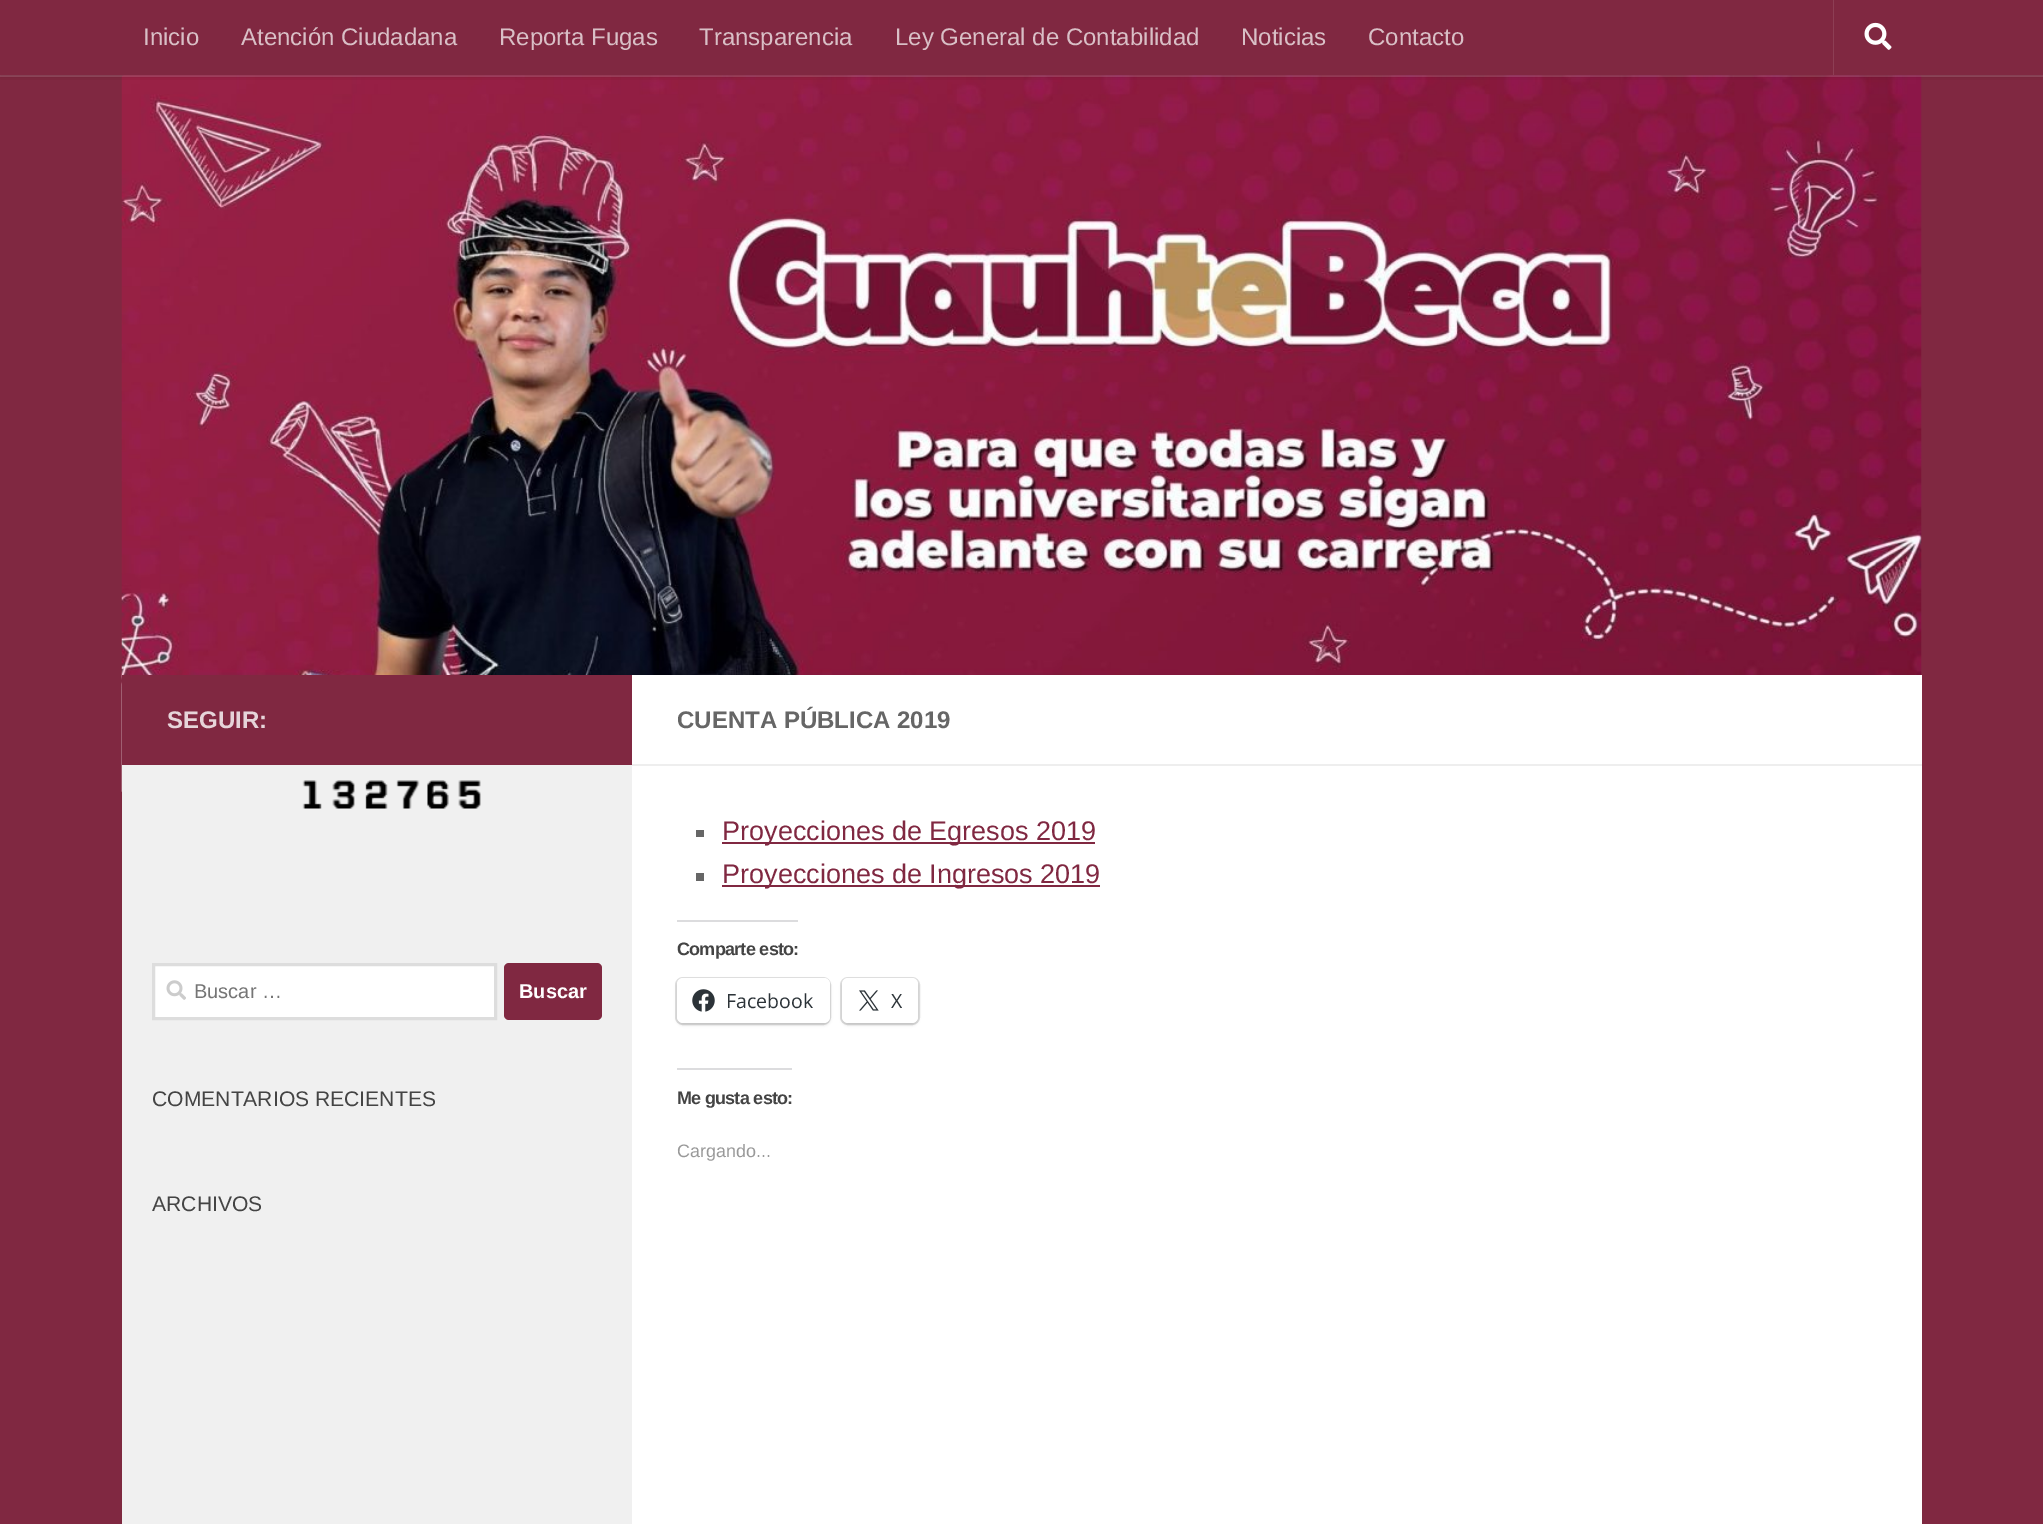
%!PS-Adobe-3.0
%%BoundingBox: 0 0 2043 1524
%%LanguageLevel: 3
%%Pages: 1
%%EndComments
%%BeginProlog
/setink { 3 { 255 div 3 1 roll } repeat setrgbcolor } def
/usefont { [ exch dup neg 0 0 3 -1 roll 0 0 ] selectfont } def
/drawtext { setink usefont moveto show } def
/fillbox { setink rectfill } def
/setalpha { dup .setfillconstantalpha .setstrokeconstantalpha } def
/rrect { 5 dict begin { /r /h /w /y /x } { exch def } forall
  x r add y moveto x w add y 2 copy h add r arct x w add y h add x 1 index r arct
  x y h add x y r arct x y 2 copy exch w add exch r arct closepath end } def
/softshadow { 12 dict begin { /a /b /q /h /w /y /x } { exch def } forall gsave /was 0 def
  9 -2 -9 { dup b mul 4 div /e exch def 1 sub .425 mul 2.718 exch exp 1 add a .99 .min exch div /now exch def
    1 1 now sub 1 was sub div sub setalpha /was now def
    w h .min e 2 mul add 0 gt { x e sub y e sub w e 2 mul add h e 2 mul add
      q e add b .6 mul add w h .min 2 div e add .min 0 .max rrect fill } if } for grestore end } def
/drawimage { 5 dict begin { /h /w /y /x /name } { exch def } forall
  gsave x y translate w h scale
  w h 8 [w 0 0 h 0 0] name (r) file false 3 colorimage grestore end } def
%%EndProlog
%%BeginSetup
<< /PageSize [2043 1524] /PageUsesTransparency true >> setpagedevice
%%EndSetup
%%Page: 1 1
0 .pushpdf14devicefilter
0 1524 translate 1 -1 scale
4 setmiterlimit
0 0 2043 1524 128 40 65 fillbox
0 0 0 setink
122 677 1800 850 0 1 0.1 softshadow
121 676 1802 89 128 40 65 fillbox
(assets/img2.rgb) 121 75 1801 717 drawimage
0.15 setalpha
0 75 2043 2 255 255 255 fillbox
gsave
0 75 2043 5 rectclip
1 setalpha
0 0 0 setink
0 0 2043 75 0 4 0.2 softshadow
grestore
1 setalpha
(Inicio) 143 45 /LiberationSans-Regular 24 217 191 198 drawtext
(Atención Ciudadana) 241 45 /LiberationSans-Regular 24 217 191 198 drawtext
(Reporta Fugas) 499 45 /LiberationSans-Regular 24 217 191 198 drawtext
(Transparencia) 699 45 /LiberationSans-Regular 24 217 191 198 drawtext
(Ley General de Contabilidad) 895 45 /LiberationSans-Regular 24 217 191 198 drawtext
(Noticias) 1241 45 /LiberationSans-Regular 24 217 191 198 drawtext
(Contacto) 1368 45 /LiberationSans-Regular 24 217 191 198 drawtext
1833 0 1 75 141 62 84 fillbox
(assets/img1.rgb) 1864 22 28 28 drawimage
632 675 1290 849 255 255 255 fillbox
122 675 510 90 128 40 65 fillbox
(SEGUIR:) 167 728 /LiberationSans-Bold 24 230 212 217 drawtext
122 765 510 759 240 240 240 fillbox
(assets/img3.rgb) 302 780 20 29 drawimage
(assets/img4.rgb) 332 780 23 29 drawimage
(assets/img5.rgb) 365 780 23 29 drawimage
(assets/img6.rgb) 396 780 24 29 drawimage
(assets/img7.rgb) 427 780 22 29 drawimage
(assets/img8.rgb) 458 780 23 29 drawimage
255 255 255 setink
153.5 964.5 moveto 495.5 964.5 lineto 495.5 1018.5 lineto 153.5 1018.5 lineto closepath gsave fill grestore
221 221 221 setink
3 setlinewidth
stroke
(assets/img9.rgb) 166 980 20 20 drawimage
(Buscar …) 194 998 /LiberationSans-Regular 20 117 117 117 drawtext
128 40 65 setink
504 963 98 57 5 rrect fill
(Buscar) 519 998 /LiberationSans-Bold 20 255 255 255 drawtext
(COMENTARIOS RECIENTES) 152 1106 /LiberationSans-Regular 21.1 68 68 68 drawtext
(ARCHIVOS) 152 1211 /LiberationSans-Regular 21.1 68 68 68 drawtext
632 764 1290 2 238 238 238 fillbox
(CUENTA PÚBLICA 2019) 677 728 /LiberationSans-Bold 24 102 102 102 drawtext
696 830 8 7 102 102 102 fillbox
722 842 373 2 128 40 65 fillbox
(Proyecciones de Egresos 2019) 722 840 /LiberationSans-Regular 27 128 40 65 drawtext
696 873 8 8 102 102 102 fillbox
722 885 378 2 128 40 65 fillbox
(Proyecciones de Ingresos 2019) 722 883 /LiberationSans-Regular 27 128 40 65 drawtext
677 920 121 2 220 220 222 fillbox
/LiberationSans-Bold 18 usefont
68 68 68 setink
677 955 moveto -0.75 0 (Comparte esto:) ashow
224 224 224 setink
2 setlinewidth
676 978 154 46 7 rrect stroke
0 0 0 setink
677 980 153 45 6 1.5 0.12 softshadow
255 255 255 setink
677 978 153 45 6 rrect fill
(assets/img10.rgb) 692 989 23 23 drawimage
(Facebook) 726 1008 /OpenSans-Regular 19.5 44 51 56 drawtext
224 224 224 setink
841 978 78 46 7 rrect stroke
0 0 0 setink
842 980 76 45 6 1.5 0.12 softshadow
255 255 255 setink
842 978 76 45 6 rrect fill
(assets/img11.rgb) 859 990 20 21 drawimage
(X) 891 1008 /OpenSans-Regular 19.5 44 51 56 drawtext
677 1068 115 2 220 220 222 fillbox
/LiberationSans-Bold 18 usefont
68 68 68 setink
677 1104 moveto -0.75 0 (Me gusta esto:) ashow
(Cargando...) 677 1157 /LiberationSans-Regular 18 153 153 153 drawtext
.poppdf14devicefilter showpage
%%EOF
